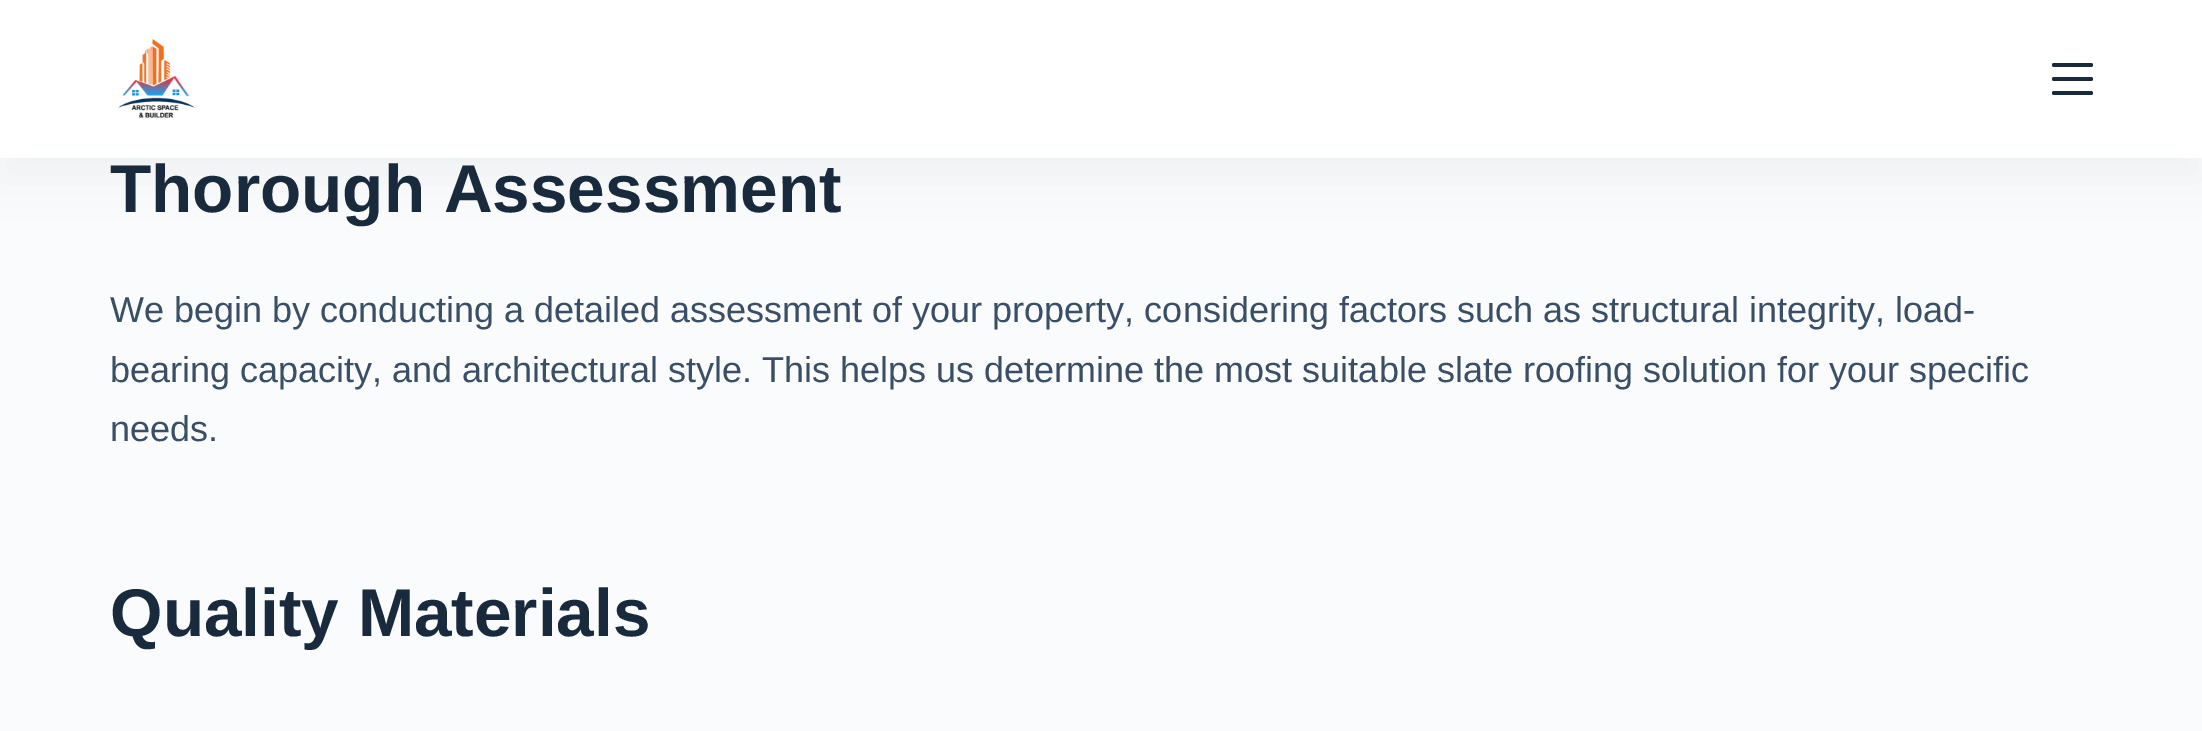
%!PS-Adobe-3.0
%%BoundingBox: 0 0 2202 731
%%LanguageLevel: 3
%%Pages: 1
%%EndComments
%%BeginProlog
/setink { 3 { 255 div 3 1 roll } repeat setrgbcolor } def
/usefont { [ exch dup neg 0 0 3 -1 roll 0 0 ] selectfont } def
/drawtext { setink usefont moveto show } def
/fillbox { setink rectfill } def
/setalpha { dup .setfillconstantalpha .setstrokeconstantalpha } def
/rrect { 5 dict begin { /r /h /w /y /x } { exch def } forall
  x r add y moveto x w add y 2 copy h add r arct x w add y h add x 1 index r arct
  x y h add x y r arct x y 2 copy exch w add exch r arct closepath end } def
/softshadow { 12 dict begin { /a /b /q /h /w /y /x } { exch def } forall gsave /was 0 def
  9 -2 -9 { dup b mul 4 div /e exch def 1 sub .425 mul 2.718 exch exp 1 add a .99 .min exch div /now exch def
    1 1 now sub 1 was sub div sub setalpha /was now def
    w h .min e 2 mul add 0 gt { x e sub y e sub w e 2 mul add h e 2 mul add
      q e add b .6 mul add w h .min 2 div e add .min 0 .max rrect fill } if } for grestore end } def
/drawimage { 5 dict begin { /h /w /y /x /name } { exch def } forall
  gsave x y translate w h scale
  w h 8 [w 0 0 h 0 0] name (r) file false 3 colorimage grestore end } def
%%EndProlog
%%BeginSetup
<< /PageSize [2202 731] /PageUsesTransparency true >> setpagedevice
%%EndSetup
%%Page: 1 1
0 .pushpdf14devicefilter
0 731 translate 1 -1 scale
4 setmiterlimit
0 0 2202 731 250 251 252 fillbox
44 62 80 setink
0 23 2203 157 0 22.5 0.05 softshadow
0 0 2202 158 255 255 255 fillbox
(assets/img1.rgb) 118 38 77 80 drawimage
25 42 61 setink
2052 63 41 4 2 rrect fill
2052 77 41 4 2 rrect fill
2052 91 41 4 2 rrect fill
(Thorough Assessment) 110 212 /LiberationSans-Bold 67.5 25 42 61 drawtext
(We begin by conducting a detailed assessment of your property, considering factors such as structural integrity, load-) 110 322 /LiberationSans-Regular 36 58 79 102 drawtext
(bearing capacity, and architectural style. This helps us determine the most suitable slate roofing solution for your specific) 110 382 /LiberationSans-Regular 36 58 79 102 drawtext
(needs.) 110 441 /LiberationSans-Regular 36 58 79 102 drawtext
(Quality Materials) 110 636 /LiberationSans-Bold 67.5 25 42 61 drawtext
.poppdf14devicefilter showpage
%%EOF
